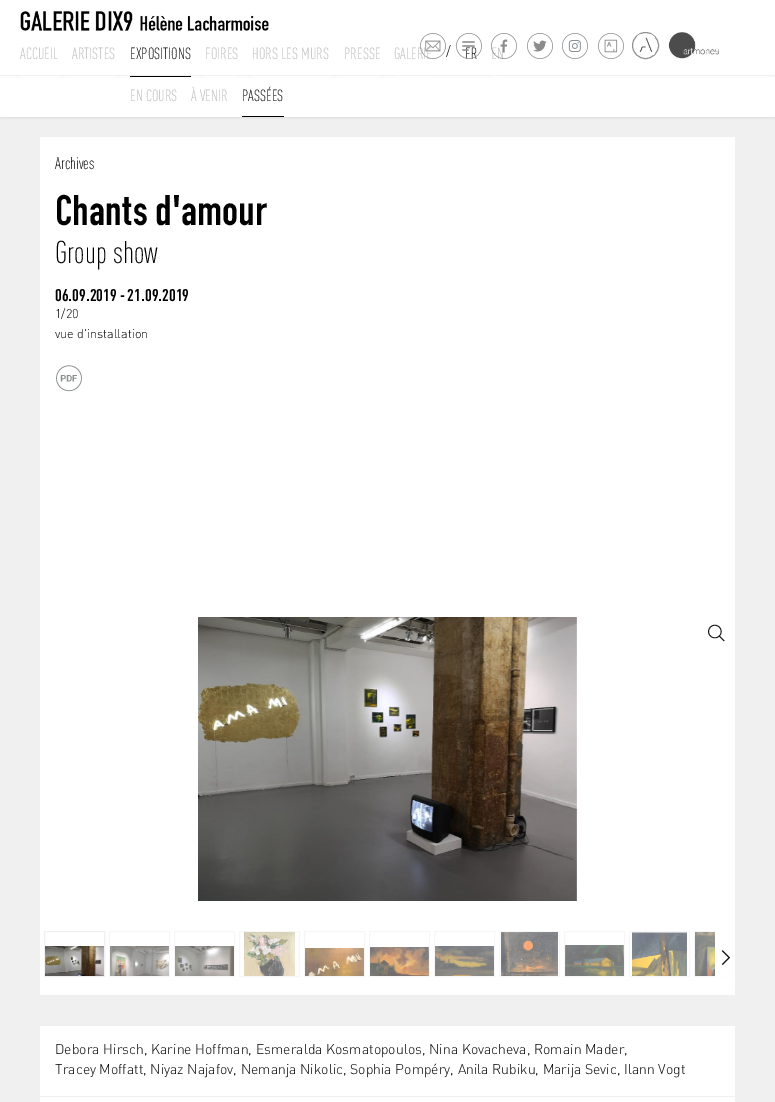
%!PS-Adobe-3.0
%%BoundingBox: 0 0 775 1102
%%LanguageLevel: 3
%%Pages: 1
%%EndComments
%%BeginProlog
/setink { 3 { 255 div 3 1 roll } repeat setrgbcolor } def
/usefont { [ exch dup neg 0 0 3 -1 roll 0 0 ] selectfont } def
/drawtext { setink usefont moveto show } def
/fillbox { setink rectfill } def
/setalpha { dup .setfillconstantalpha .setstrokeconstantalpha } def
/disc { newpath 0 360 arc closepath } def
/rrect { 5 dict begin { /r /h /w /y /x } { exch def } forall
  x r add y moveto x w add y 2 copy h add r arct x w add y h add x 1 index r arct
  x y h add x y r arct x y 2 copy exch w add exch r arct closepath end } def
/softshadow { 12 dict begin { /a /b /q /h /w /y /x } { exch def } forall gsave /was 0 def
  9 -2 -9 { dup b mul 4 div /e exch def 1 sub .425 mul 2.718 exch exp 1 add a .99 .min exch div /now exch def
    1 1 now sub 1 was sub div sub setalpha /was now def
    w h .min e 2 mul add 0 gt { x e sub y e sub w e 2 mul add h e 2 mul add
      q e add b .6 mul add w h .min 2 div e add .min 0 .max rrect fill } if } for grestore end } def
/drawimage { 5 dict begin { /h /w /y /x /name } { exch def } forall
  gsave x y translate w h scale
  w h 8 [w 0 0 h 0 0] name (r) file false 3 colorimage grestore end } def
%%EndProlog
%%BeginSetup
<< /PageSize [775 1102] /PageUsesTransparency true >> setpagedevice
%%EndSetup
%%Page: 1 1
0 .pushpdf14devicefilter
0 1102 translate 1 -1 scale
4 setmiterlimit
0 0 775 1102 240 240 241 fillbox
0 0 0 setink
0 76 775 42 0 1 0.07 softshadow
0 75 775 42 255 255 255 fillbox
0 0 0 setink
0 1 775 75 0 1 0.07 softshadow
0 0 775 75 255 255 255 fillbox
(assets/img1.rgb) 20 11 249 20 drawimage
20 76 38 1 255 255 255 fillbox
(ACCUEIL) 20 59 /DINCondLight-Light 16 185 185 185 drawtext
72 76 44 1 255 255 255 fillbox
(ARTISTES) 72 59 /DINCondLight-Light 16 185 185 185 drawtext
130 76 61 1 0 0 0 fillbox
(EXPOSITIONS) 130 59 /DINCondLight-Light 16 0 0 0 drawtext
(EN COURS) 130 101 /DINCondLight-Light 16 185 185 185 drawtext
(À VENIR) 191 101 /DINCondLight-Light 16 185 185 185 drawtext
(PASSÉES) 242 101 /DINCondLight-Light 16 0 0 0 drawtext
242 116 42 1 0 0 0 fillbox
(/) 446 56 /DIN-Light 14 0 0 0 drawtext
205 76 33 1 255 255 255 fillbox
(FOIRES) 205 59 /DINCondLight-Light 16 185 185 185 drawtext
252 76 78 1 255 255 255 fillbox
(HORS LES MURS) 252 59 /DINCondLight-Light 16 185 185 185 drawtext
344 76 36 1 255 255 255 fillbox
(PRESSE) 344 59 /DINCondLight-Light 16 185 185 185 drawtext
394 76 38 1 255 255 255 fillbox
(assets/img2.rgb) 420 33 26 26 drawimage
(GALERIE) 394 59 /DINCondLight-Light 16 185 185 185 drawtext
(FR) 465 59 /DINCondLight-Light 16 0 0 0 drawtext
491 76 13 1 255 255 255 fillbox
(EN) 491 59 /DINCondLight-Light 16 185 185 185 drawtext
(assets/img3.rgb) 456 33 26 26 drawimage
(assets/img4.rgb) 491 33 26 26 drawimage
(assets/img5.rgb) 527 33 26 26 drawimage
(assets/img6.rgb) 562 33 26 26 drawimage
(assets/img7.rgb) 598 33 26 26 drawimage
148 148 148 setink
645.5 45.5 13 disc stroke
(assets/img8.rgb) 637 34 18 21 drawimage
(assets/img9.rgb) 668 32 51 27 drawimage
40 137 695 858 255 255 255 fillbox
(Archives) 55 169 /DINCondLight-Light 16.75 0 0 0 drawtext
(Chants d'amour) 55 225 /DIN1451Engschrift-Regular 45 0 0 0 drawtext
(Group show) 55 263 /DINCondLight-Light 31 0 0 0 drawtext
(06.09.2019 - 21.09.2019) 55 301 /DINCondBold-Bold 16.75 0 0 0 drawtext
(1/20) 55 318 /DIN-Light 12.5 0 0 0 drawtext
(vue d'installation) 55 338 /DIN-Light 12.5 0 0 0 drawtext
(assets/img10.rgb) 56 365 26 27 drawimage
(assets/img11.rgb) 198 617 379 284 drawimage
(assets/img12.rgb) 708 624 17 18 drawimage
240 240 240 setink
44.5 931.5 60 45 rectstroke
(assets/img13.rgb) 45 946 59 30 drawimage
246 246 246 setink
109.5 931.5 60 45 rectstroke
(assets/img14.rgb) 110 946 59 30 drawimage
174.5 931.5 60 45 rectstroke
(assets/img15.rgb) 175 946 59 30 drawimage
239.5 931.5 60 45 rectstroke
(assets/img16.rgb) 244 932 51 44 drawimage
304.5 931.5 60 45 rectstroke
(assets/img17.rgb) 305 948 59 28 drawimage
369.5 931.5 60 45 rectstroke
(assets/img18.rgb) 370 947 59 29 drawimage
434.5 931.5 60 45 rectstroke
(assets/img19.rgb) 435 946 59 30 drawimage
499.5 931.5 60 45 rectstroke
(assets/img20.rgb) 501 932 57 44 drawimage
564.5 931.5 60 45 rectstroke
(assets/img21.rgb) 565 945 59 31 drawimage
629.5 931.5 60 45 rectstroke
(assets/img22.rgb) 632 932 55 44 drawimage
gsave
40 931 695 64 rectclip
694.5 931.5 60 45 rectstroke
grestore
(assets/img23.rgb) 695 932 20 44 drawimage
715 931 20 46 255 255 255 fillbox
(assets/img24.rgb) 721 950 9 15 drawimage
40 1026 695 70 255 255 255 fillbox
(Debora Hirsch, Karine Hoffman, Esmeralda Kosmatopoulos, Nina Kovacheva, Romain Mader,) 55 1054 /DIN-Light 14 0 0 0 drawtext
(Tracey Moffatt, Niyaz Najafov, Nemanja Nikolic, Sophia Pompéry, Anila Rubiku, Marija Sevic, Ilann Vogt) 55 1074 /DIN-Light 14 0 0 0 drawtext
40 1097 695 5 255 255 255 fillbox
.poppdf14devicefilter showpage
%%EOF
